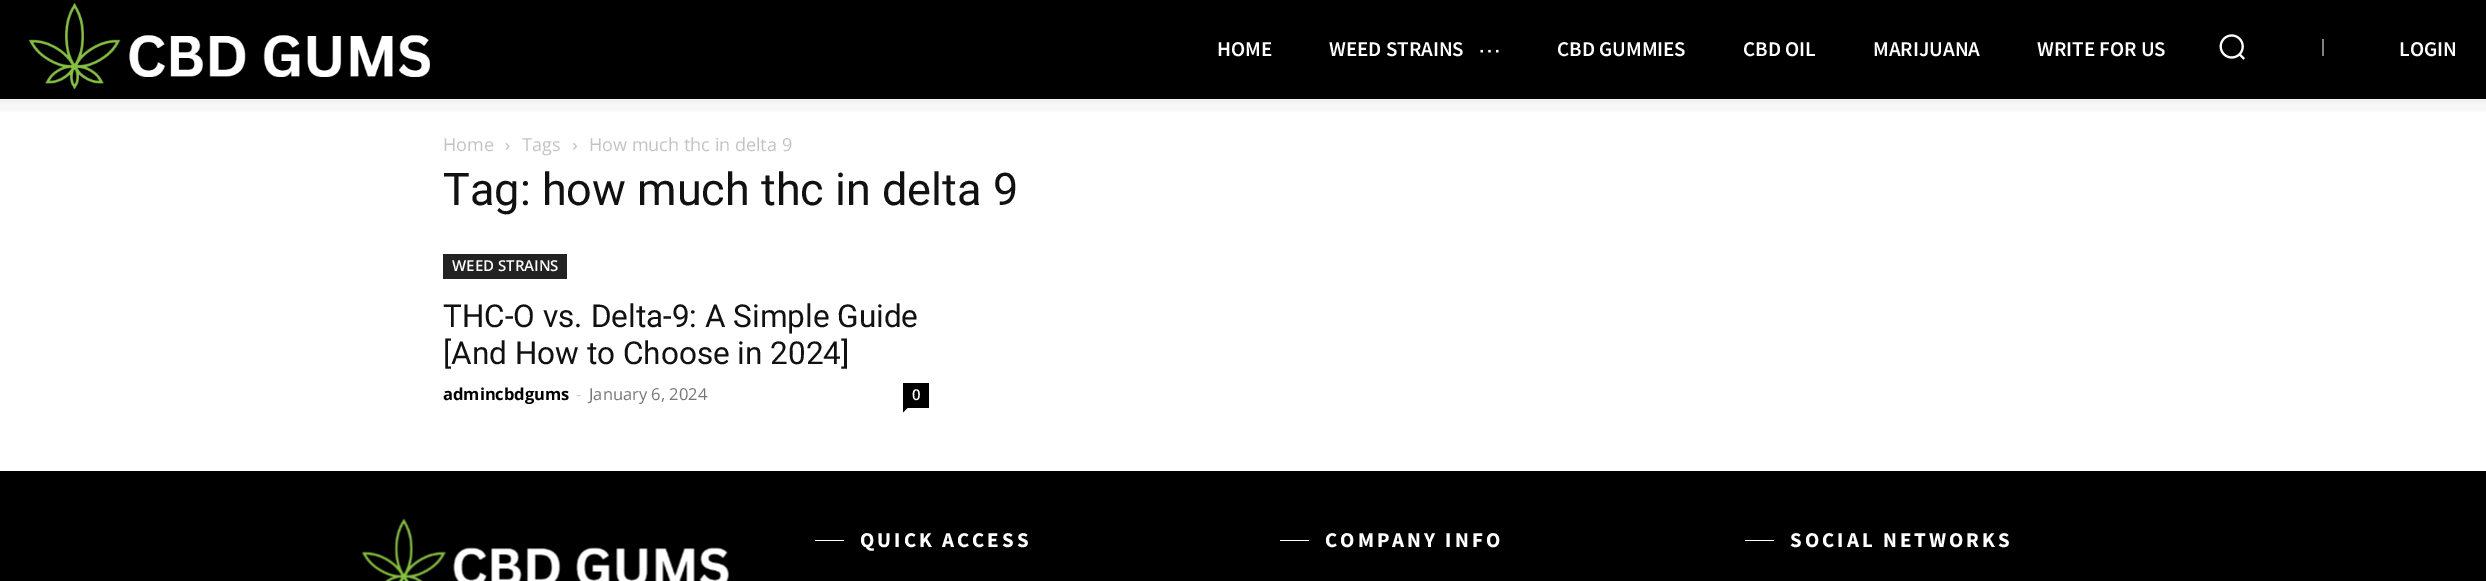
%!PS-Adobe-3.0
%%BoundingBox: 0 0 2486 581
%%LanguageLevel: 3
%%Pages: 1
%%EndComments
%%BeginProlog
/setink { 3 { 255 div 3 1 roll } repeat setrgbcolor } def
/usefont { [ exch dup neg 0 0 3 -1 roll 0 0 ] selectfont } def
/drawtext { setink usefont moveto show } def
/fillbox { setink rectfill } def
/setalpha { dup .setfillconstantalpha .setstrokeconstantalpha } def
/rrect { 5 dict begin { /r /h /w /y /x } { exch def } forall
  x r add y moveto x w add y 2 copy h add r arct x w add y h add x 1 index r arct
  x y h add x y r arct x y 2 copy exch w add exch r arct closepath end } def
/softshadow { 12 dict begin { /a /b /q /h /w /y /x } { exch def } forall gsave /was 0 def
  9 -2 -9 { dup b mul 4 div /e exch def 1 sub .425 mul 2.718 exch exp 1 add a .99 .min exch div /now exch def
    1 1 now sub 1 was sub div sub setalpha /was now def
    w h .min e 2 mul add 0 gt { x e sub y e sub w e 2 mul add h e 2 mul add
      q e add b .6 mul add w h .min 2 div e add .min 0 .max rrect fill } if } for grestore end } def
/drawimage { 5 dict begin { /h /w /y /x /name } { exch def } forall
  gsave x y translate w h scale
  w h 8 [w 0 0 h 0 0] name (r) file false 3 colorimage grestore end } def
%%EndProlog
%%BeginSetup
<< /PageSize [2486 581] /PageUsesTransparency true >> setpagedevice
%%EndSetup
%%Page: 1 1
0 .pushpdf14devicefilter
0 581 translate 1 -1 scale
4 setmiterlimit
0 0 2486 581 255 255 255 fillbox
0 0 2486 99 0 0 0 fillbox
(assets/img4.rgb) 505 143 5 7 drawimage
(assets/img5.rgb) 573 143 4 7 drawimage
gsave
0 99 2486 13 rectclip
-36 0 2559 99 0 15 0.1 softshadow
grestore
(assets/img1.rgb) 28 3 402 87 drawimage
(HOME) 1217 56 /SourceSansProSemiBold-SemiBold 21 255 255 255 drawtext
(WEED STRAINS) 1329 56 /SourceSansProSemiBold-SemiBold 21 255 255 255 drawtext
(assets/img2.rgb) 1480 49 19 4 drawimage
(CBD GUMMIES) 1557 56 /SourceSansProSemiBold-SemiBold 21 255 255 255 drawtext
(CBD OIL) 1743 56 /SourceSansProSemiBold-SemiBold 21 255 255 255 drawtext
(MARIJUANA) 1873 56 /SourceSansProSemiBold-SemiBold 21 255 255 255 drawtext
(WRITE FOR US) 2037 56 /SourceSansProSemiBold-SemiBold 21 255 255 255 drawtext
(assets/img3.rgb) 2219 34 26 26 drawimage
2322 39 2 17 128 128 128 fillbox
(LOGIN) 2399 56 /SourceSansProSemiBold-SemiBold 21 255 255 255 drawtext
(Home) 443 151 /OpenSans-Regular 18 195 195 195 drawtext
(Tags) 522 151 /OpenSans-Regular 18 195 195 195 drawtext
(How much thc in delta 9) 589 151 /OpenSans-Regular 18 195 195 195 drawtext
(Tag: how much thc in delta 9) 443 205 /Roboto-Regular 45 17 17 17 drawtext
443 254 124 25 34 34 34 fillbox
(WEED STRAINS) 452 271 /OpenSans-SemiBold 15 255 255 255 drawtext
(THC-O vs. Delta-9: A Simple Guide) 443 327 /Roboto-Regular 31.5 17 17 17 drawtext
([And How to Choose in 2024]) 443 364 /Roboto-Regular 31.5 17 17 17 drawtext
(admincbdgums) 443 400 /OpenSans-Bold 16.5 0 0 0 drawtext
(-) 576 400 /OpenSans-Regular 16.5 204 204 204 drawtext
(January 6, 2024) 589 400 /OpenSans-Regular 16.5 118 118 118 drawtext
903 383 26 25 0 0 0 fillbox
(0) 912 400 /OpenSans-SemiBold 15 255 255 255 drawtext
0 0 0 setink
903 408 moveto 907.5 408 lineto 903 412.5 lineto closepath fill
0 471 2486 110 0 0 0 fillbox
(assets/img6.rgb) 361 518 368 63 drawimage
815 540 29 1 255 255 255 fillbox
/SourceSansPro-Bold 21 usefont
860 547 moveto 3 0 (QUICK ACCESS) ashow
1280 540 29 1 255 255 255 fillbox
1325 547 moveto 3 0 (COMPANY INFO) ashow
1745 540 29 1 255 255 255 fillbox
1790 547 moveto 3 0 (SOCIAL NETWORKS) ashow
.poppdf14devicefilter showpage
%%EOF
